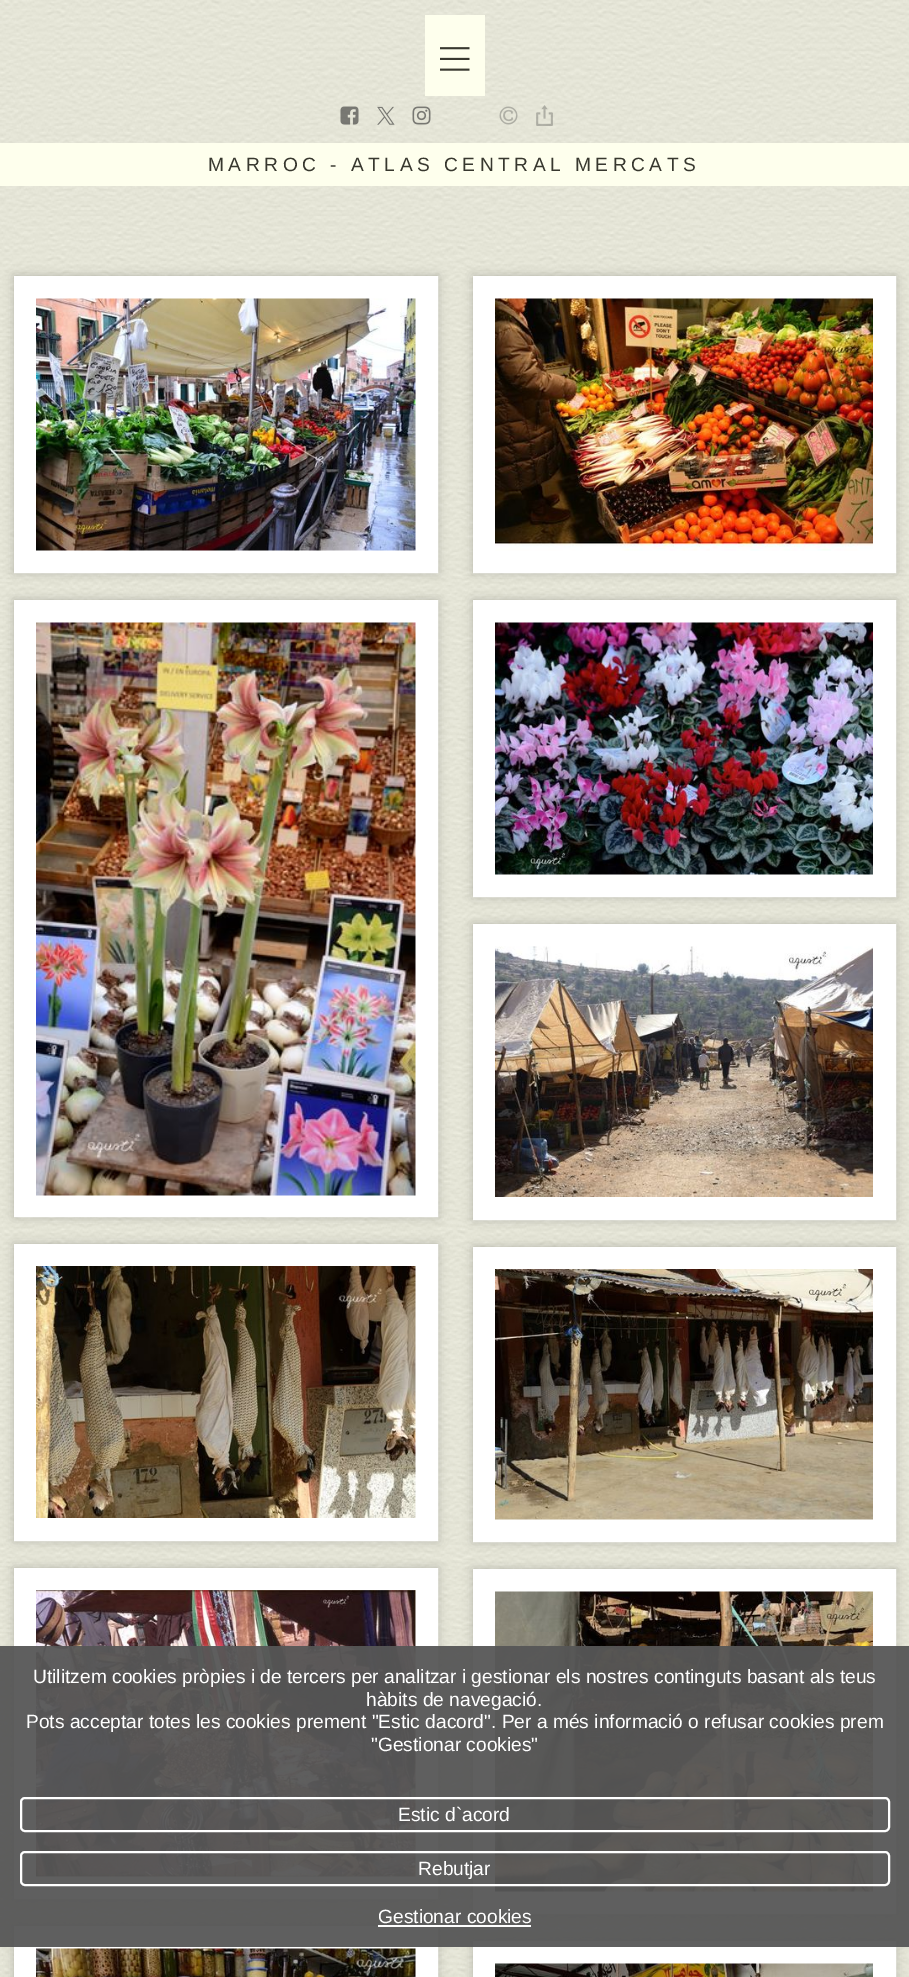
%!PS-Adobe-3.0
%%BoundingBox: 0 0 909 1977
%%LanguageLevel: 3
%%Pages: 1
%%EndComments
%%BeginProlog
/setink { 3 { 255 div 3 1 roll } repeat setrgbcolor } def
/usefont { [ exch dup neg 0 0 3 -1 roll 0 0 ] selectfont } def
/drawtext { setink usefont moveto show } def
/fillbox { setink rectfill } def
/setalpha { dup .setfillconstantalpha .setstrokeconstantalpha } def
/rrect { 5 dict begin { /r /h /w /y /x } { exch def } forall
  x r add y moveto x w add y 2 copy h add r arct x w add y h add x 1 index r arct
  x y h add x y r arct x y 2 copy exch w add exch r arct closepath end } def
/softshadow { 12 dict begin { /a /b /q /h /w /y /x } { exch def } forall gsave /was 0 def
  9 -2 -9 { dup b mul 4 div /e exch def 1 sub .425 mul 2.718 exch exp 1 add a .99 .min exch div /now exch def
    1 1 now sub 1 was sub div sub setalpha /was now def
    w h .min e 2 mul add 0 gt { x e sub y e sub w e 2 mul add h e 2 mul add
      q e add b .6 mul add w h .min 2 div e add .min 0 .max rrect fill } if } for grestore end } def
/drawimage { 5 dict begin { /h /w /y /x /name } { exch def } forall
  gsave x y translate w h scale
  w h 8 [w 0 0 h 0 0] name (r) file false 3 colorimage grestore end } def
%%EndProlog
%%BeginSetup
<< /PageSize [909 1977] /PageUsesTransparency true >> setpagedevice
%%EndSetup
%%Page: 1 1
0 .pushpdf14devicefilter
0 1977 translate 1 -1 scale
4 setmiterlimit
0 0 909 1977 252 252 235 fillbox
(assets/img1.rgb) 0 0 909 1977 drawimage
425 15 60 81 254 255 237 fillbox
(assets/img2.rgb) 440 47 30 24 drawimage
(assets/img3.rgb) 340 106 19 19 drawimage
(assets/img4.rgb) 377 106 18 19 drawimage
(assets/img5.rgb) 412 106 19 19 drawimage
(assets/img6.rgb) 499 106 19 19 drawimage
(assets/img7.rgb) 536 105 17 21 drawimage
0 143 909 43 254 255 237 fillbox
/LiberationSans-Regular 19.2 usefont
56 56 47 setink
208 171 moveto 4.5 0 (MARROC - ATLAS CENTRAL MERCATS) ashow
0 0 0 setink
14 276 424 297 0 5 0.2 softshadow
255 255 255 setink
23 setlinewidth
25.5 287.5 401 274 rectstroke
(assets/img8.rgb) 36 298 380 253 drawimage
0 0 0 setink
14 600 424 617 0 5 0.2 softshadow
255 255 255 setink
25.5 611.5 401 594 rectstroke
(assets/img9.rgb) 36 622 380 574 drawimage
0 0 0 setink
14 1244 424 297 0 5 0.2 softshadow
255 255 255 setink
25.5 1255.5 401 274 rectstroke
(assets/img10.rgb) 36 1266 380 252 drawimage
0 0 0 setink
14 1568 424 331 0 5 0.2 softshadow
255 255 255 setink
25.5 1579.5 401 308 rectstroke
(assets/img11.rgb) 36 1590 380 287 drawimage
0 0 0 setink
14 1926 424 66 0 5 0.2 softshadow
255 255 255 setink
25.5 1937.5 401 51 rectstroke
(assets/img12.rgb) 36 1948 380 29 drawimage
0 0 0 setink
473 276 423 297 0 5 0.2 softshadow
255 255 255 setink
484.5 287.5 400 274 rectstroke
(assets/img13.rgb) 495 298 378 253 drawimage
0 0 0 setink
473 600 423 297 0 5 0.2 softshadow
255 255 255 setink
484.5 611.5 400 274 rectstroke
(assets/img14.rgb) 495 622 378 253 drawimage
0 0 0 setink
473 924 423 296 0 5 0.2 softshadow
255 255 255 setink
484.5 935.5 400 273 rectstroke
(assets/img15.rgb) 495 946 378 251 drawimage
0 0 0 setink
473 1247 423 295 0 5 0.2 softshadow
255 255 255 setink
484.5 1258.5 400 272 rectstroke
(assets/img16.rgb) 495 1269 378 251 drawimage
0 0 0 setink
473 1569 423 345 0 5 0.2 softshadow
255 255 255 setink
484.5 1580.5 400 322 rectstroke
(assets/img17.rgb) 495 1591 378 301 drawimage
0 0 0 setink
473 1941 423 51 0 5 0.2 softshadow
255 255 255 setink
484.5 1952.5 400 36 rectstroke
(assets/img18.rgb) 495 1963 378 14 drawimage
0.95 setalpha
0 1646 909 301 86 86 86 fillbox
1 setalpha
(Utilitzem cookies pròpies i de tercers per analitzar i gestionar els nostres continguts basant als teus) 33 1683 /LiberationSans-Regular 19.2 255 255 255 drawtext
(hàbits de navegació.) 366 1706 /LiberationSans-Regular 19.2 255 255 255 drawtext
(Pots acceptar totes les cookies prement "Estic dacord". Per a més informació o refusar cookies prem) 26 1728 /LiberationSans-Regular 19.2 255 255 255 drawtext
("Gestionar cookies") 371 1751 /LiberationSans-Regular 19.2 255 255 255 drawtext
2 setlinewidth
21 1798 868 33 4 rrect stroke
(Estic d`acord) 398 1821 /LiberationSans-Regular 19.2 255 255 255 drawtext
21 1852 868 33 4 rrect stroke
(Rebutjar) 418 1875 /LiberationSans-Regular 19.2 255 255 255 drawtext
(Gestionar cookies) 378 1923 /LiberationSans-Regular 19.2 255 255 255 drawtext
378 1925 153 2 255 255 255 fillbox
.poppdf14devicefilter showpage
%%EOF
